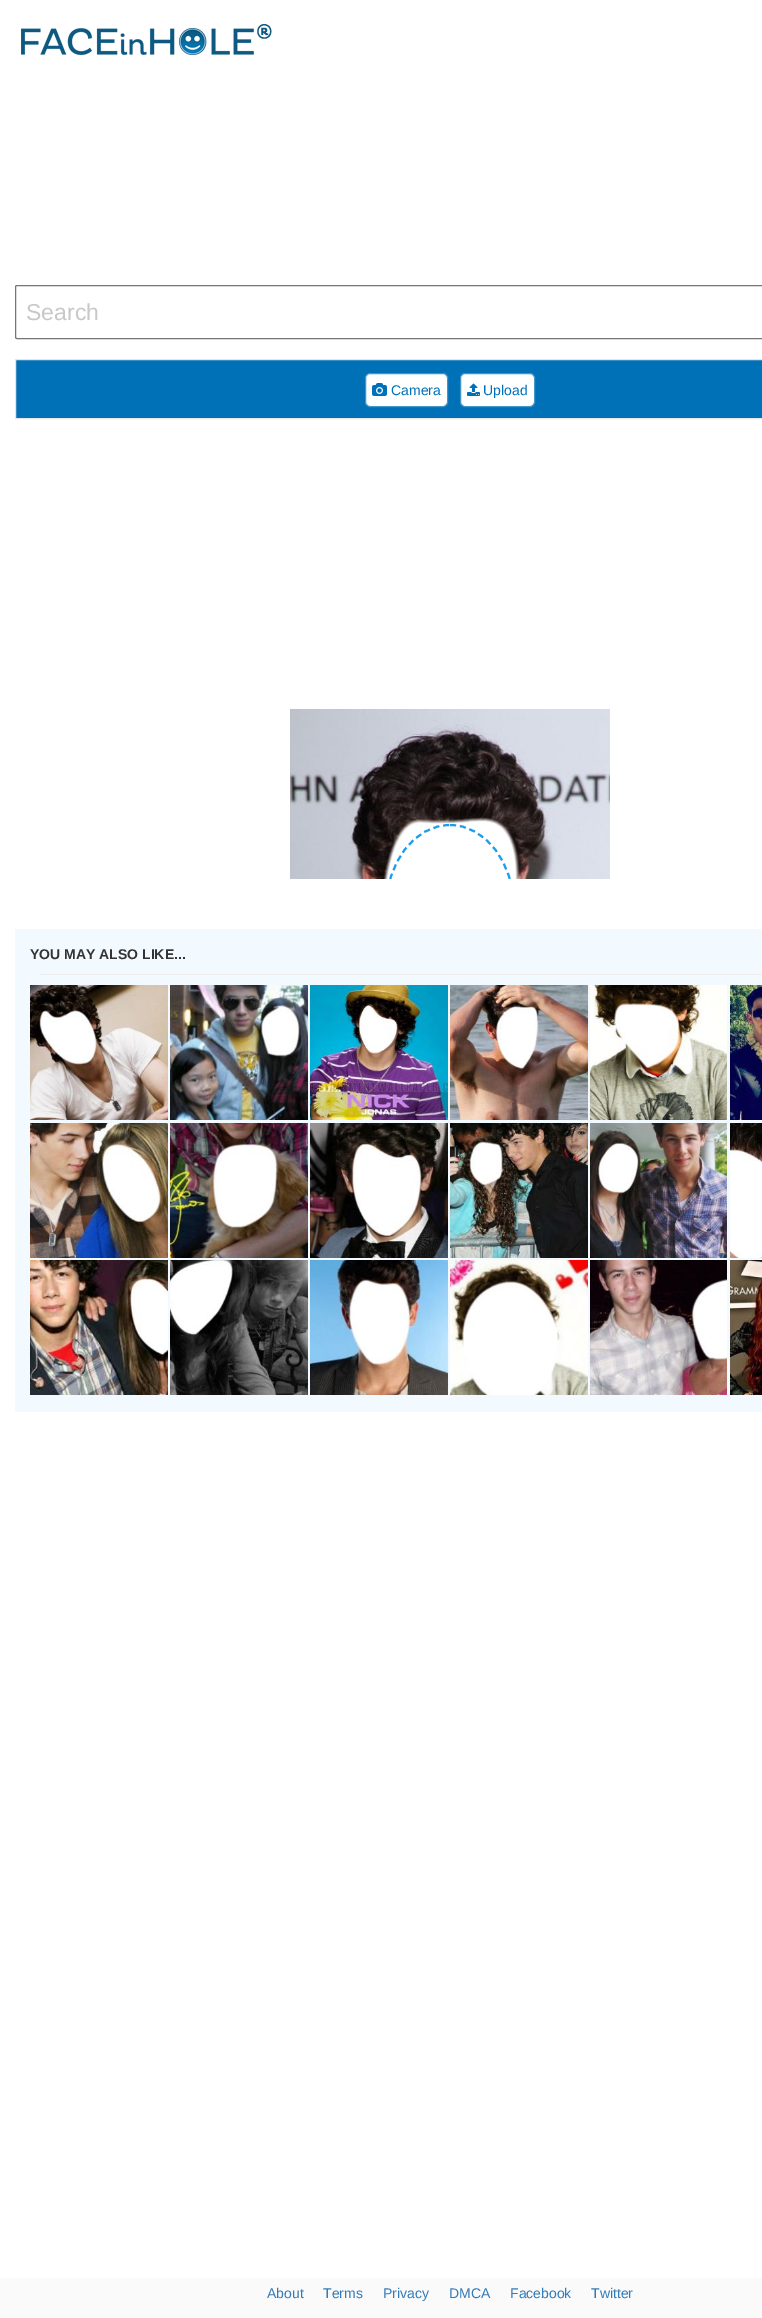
%!PS-Adobe-3.0
%%BoundingBox: 0 0 762 2318
%%LanguageLevel: 3
%%Pages: 1
%%EndComments
%%BeginProlog
/setink { 3 { 255 div 3 1 roll } repeat setrgbcolor } def
/usefont { [ exch dup neg 0 0 3 -1 roll 0 0 ] selectfont } def
/drawtext { setink usefont moveto show } def
/fillbox { setink rectfill } def
/rrect { 5 dict begin { /r /h /w /y /x } { exch def } forall
  x r add y moveto x w add y 2 copy h add r arct x w add y h add x 1 index r arct
  x y h add x y r arct x y 2 copy exch w add exch r arct closepath end } def
/drawimage { 5 dict begin { /h /w /y /x /name } { exch def } forall
  gsave x y translate w h scale
  w h 8 [w 0 0 h 0 0] name (r) file false 3 colorimage grestore end } def
%%EndProlog
%%BeginSetup
<< /PageSize [762 2318] >> setpagedevice
%%EndSetup
%%Page: 1 1
0 2318 translate 1 -1 scale
4 setmiterlimit
0 0 762 2318 255 255 255 fillbox
(assets/img1.rgb) 21 24 251 31 drawimage
118 118 118 setink
15.5 285.5 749 53 1.5 rrect stroke
(Search) 26 320 /LiberationSans-Regular 23 200 200 200 drawtext
0 112 183 setink
15.5 359.5 moveto 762.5 359.5 lineto 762.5 418.5 lineto 15.5 418.5 lineto closepath gsave fill grestore
230 230 230 setink
stroke
255 255 255 setink
365.5 373.5 82 33 4.5 rrect gsave fill grestore
66 149 201 setink
stroke
(assets/img2.rgb) 372 383 15 13 drawimage
(Camera) 391 395 /LiberationSans-Regular 14 0 112 185 drawtext
255 255 255 setink
460.5 373.5 74 33 4.5 rrect gsave fill grestore
66 149 201 setink
stroke
(assets/img3.rgb) 467 383 13 13 drawimage
(Upload) 483 395 /LiberationSans-Regular 14 0 112 185 drawtext
(assets/img4.rgb) 290 709 320 170 drawimage
gsave
290 709 320 170 rectclip
27 157 236 setink
2 setlinewidth
[6 4] 0 setdash
450 825 moveto 485.5 825 514 862.5 514 909 curveto 514 955.5 485.5 993 450 993 curveto 414.5 993 386 955.5 386 909 curveto 386 862.5 414.5 825 450 825 curveto closepath stroke
grestore
15 929 747 483 242 249 255 fillbox
(YOU MAY ALSO LIKE...) 30 959 /LiberationSans-Bold 14 51 51 51 drawtext
40 974 722 1 238 238 238 fillbox
(assets/img5.rgb) 30 985 138 135 drawimage
(assets/img6.rgb) 170 985 138 135 drawimage
(assets/img7.rgb) 310 985 138 135 drawimage
(assets/img8.rgb) 450 985 138 135 drawimage
(assets/img9.rgb) 590 985 137 135 drawimage
(assets/img10.rgb) 730 985 32 135 drawimage
(assets/img11.rgb) 30 1123 138 135 drawimage
(assets/img12.rgb) 170 1123 138 135 drawimage
(assets/img13.rgb) 310 1123 138 135 drawimage
(assets/img14.rgb) 450 1123 138 135 drawimage
(assets/img15.rgb) 590 1123 137 135 drawimage
(assets/img16.rgb) 730 1123 32 135 drawimage
(assets/img17.rgb) 30 1260 138 135 drawimage
(assets/img18.rgb) 170 1260 138 135 drawimage
(assets/img19.rgb) 310 1260 138 135 drawimage
(assets/img20.rgb) 450 1260 138 135 drawimage
(assets/img21.rgb) 590 1260 137 135 drawimage
(assets/img22.rgb) 730 1260 32 135 drawimage
0 2278 762 40 250 250 250 fillbox
(About) 267 2298 /LiberationSans-Regular 14 51 122 183 drawtext
(Terms) 323 2298 /LiberationSans-Regular 14 51 122 183 drawtext
(Privacy) 383 2298 /LiberationSans-Regular 14 51 122 183 drawtext
(DMCA) 449 2298 /LiberationSans-Regular 14 51 122 183 drawtext
(Facebook) 510 2298 /LiberationSans-Regular 14 51 122 183 drawtext
(Twitter) 591 2298 /LiberationSans-Regular 14 51 122 183 drawtext
showpage
%%EOF
